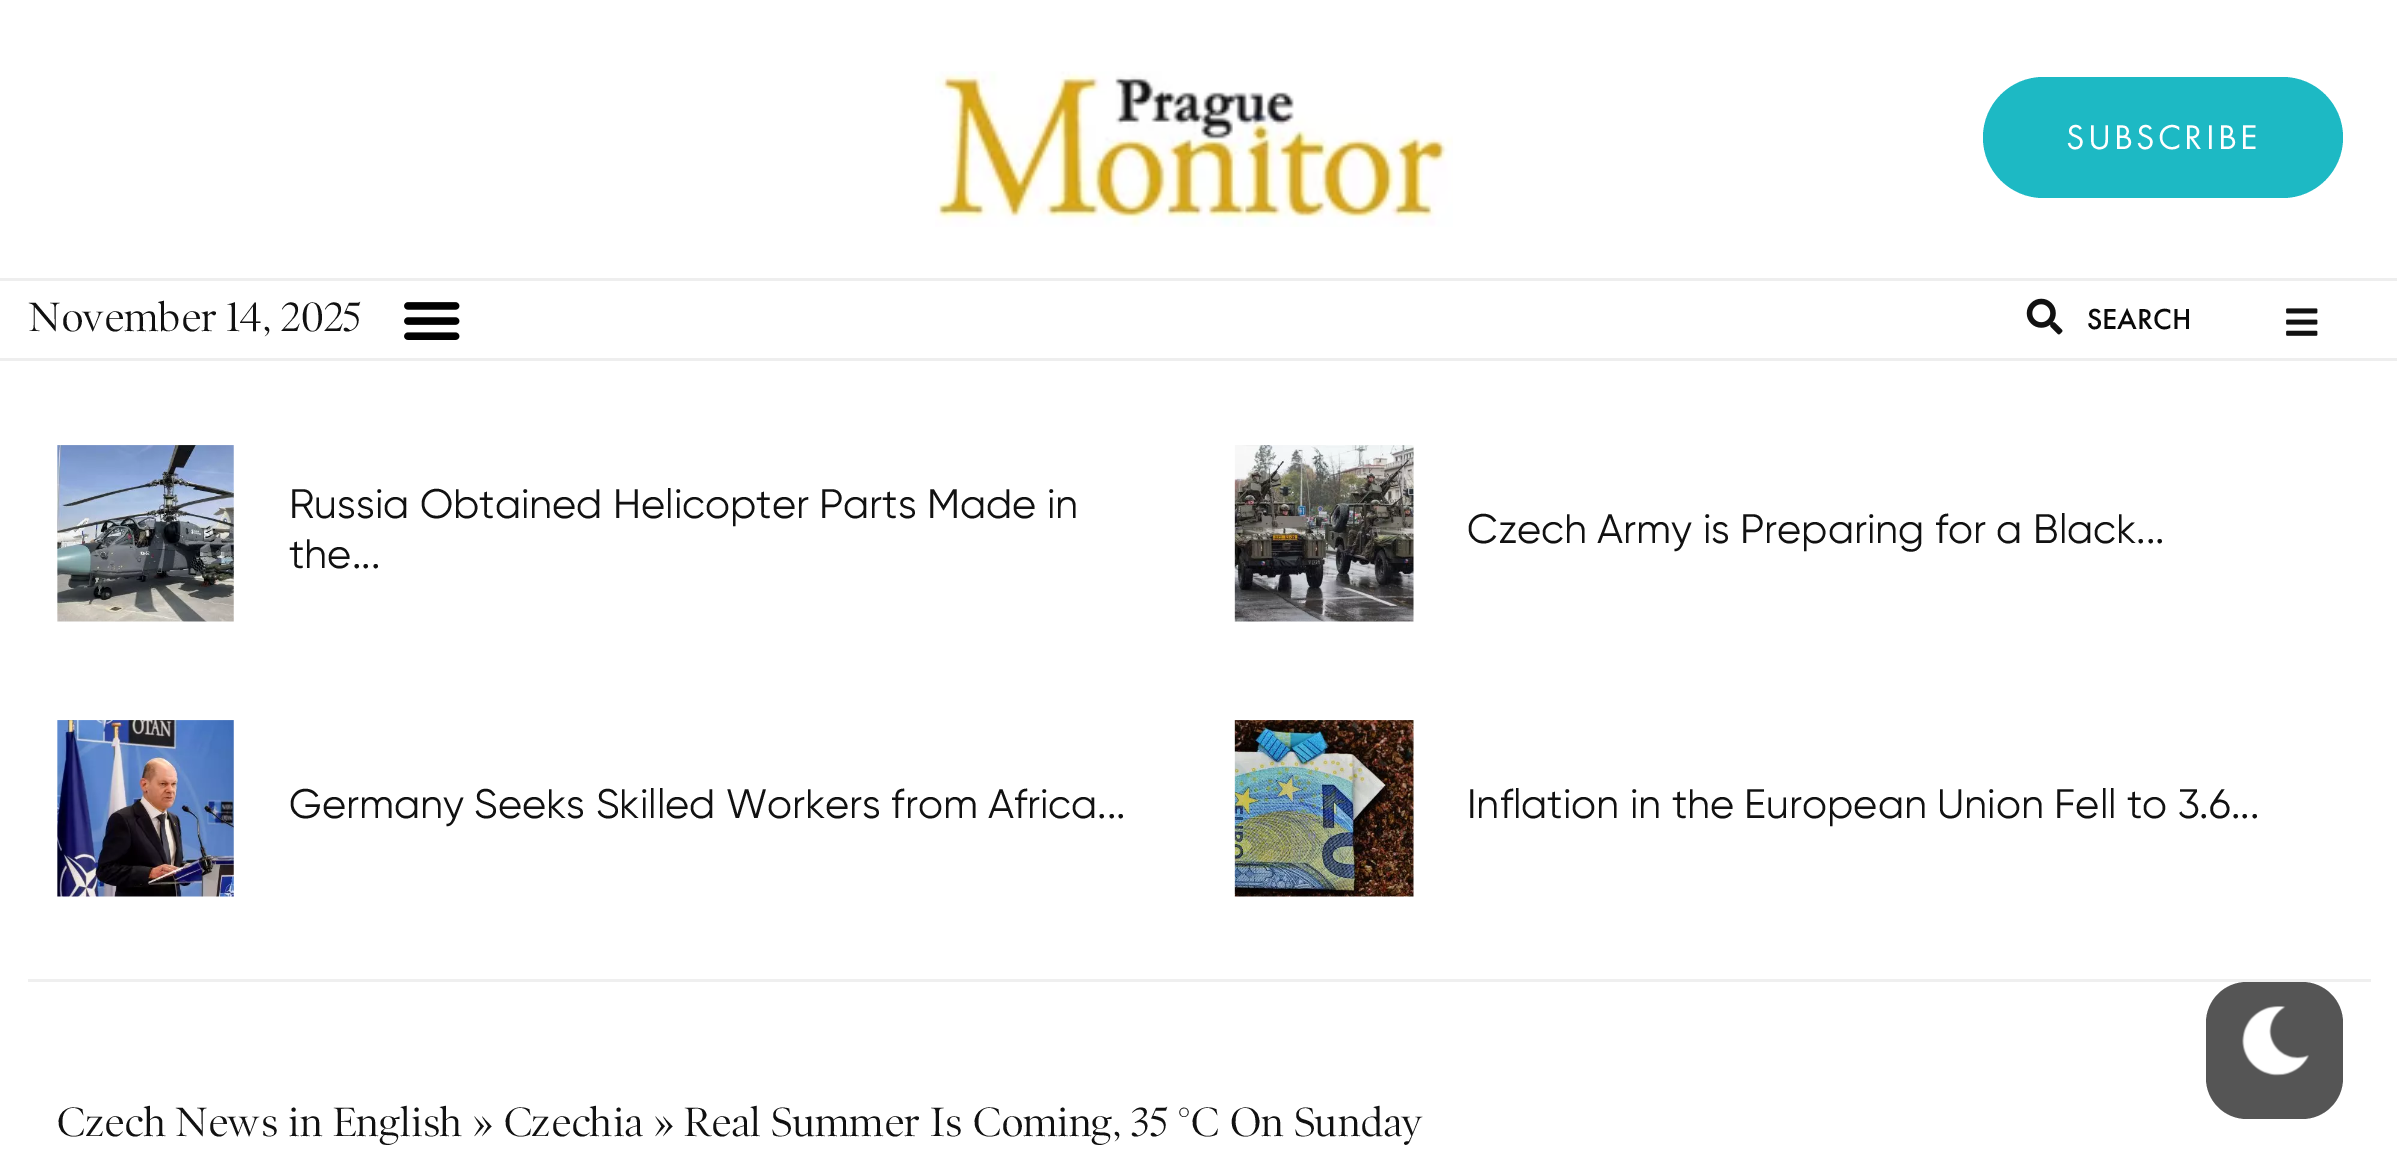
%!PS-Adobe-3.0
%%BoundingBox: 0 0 2397 1172
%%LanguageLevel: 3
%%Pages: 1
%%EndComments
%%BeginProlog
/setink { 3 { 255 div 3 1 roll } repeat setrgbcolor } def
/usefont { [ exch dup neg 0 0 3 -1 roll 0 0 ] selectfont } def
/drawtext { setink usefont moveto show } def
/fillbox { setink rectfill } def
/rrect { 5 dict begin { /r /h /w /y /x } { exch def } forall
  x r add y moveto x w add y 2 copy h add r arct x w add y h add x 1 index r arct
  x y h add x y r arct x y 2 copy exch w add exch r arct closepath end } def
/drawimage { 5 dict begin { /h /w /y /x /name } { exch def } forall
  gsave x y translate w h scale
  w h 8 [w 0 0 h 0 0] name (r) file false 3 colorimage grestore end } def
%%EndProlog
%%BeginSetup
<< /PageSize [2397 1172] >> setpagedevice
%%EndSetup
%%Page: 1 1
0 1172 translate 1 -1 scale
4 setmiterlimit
0 0 2397 1172 255 255 255 fillbox
(assets/img1.rgb) 935 71 518 156 drawimage
29 185 196 setink
1983 77 360 121 60.5 rrect fill
/FuturaPT-Regular 35.75 usefont
255 255 255 setink
2066 149 moveto 3.25 0 (SUBSCRIBE) ashow
0 278 2397 3 238 238 238 fillbox
0 358 2397 3 238 238 238 fillbox
(November 14, 2025) 28 331 /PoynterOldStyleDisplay-Regular 41.25 17 17 17 drawtext
(assets/img2.rgb) 404 302 56 38 drawimage
(assets/img3.rgb) 2026 298 37 37 drawimage
(SEARCH) 2087 329 /FuturaPT-Medium 30 10 10 10 drawtext
(assets/img4.rgb) 2286 308 32 28 drawimage
28 979 2343 3 239 239 239 fillbox
(assets/img5.rgb) 57 445 177 177 drawimage
(Russia Obtained Helicopter Parts Made in) 289 518 /Gilroy-Regular 41.25 17 17 17 drawtext
(the...) 289 568 /Gilroy-Regular 41.25 17 17 17 drawtext
(assets/img6.rgb) 1234 445 180 177 drawimage
(Czech Army is Preparing for a Black...) 1467 543 /Gilroy-Regular 41.25 17 17 17 drawtext
(assets/img7.rgb) 57 720 177 177 drawimage
(Germany Seeks Skilled Workers from Africa...) 289 818 /Gilroy-Regular 41.25 17 17 17 drawtext
(assets/img8.rgb) 1234 720 180 177 drawimage
(Inflation in the European Union Fell to 3.6...) 1467 818 /Gilroy-Regular 41.25 17 17 17 drawtext
(Czech News in English » Czechia » Real Summer Is Coming, 35 °C On Sunday) 55 1136 /PoynterOldStyleDisplay-Regular 41.25 17 17 17 drawtext
85 85 85 setink
2206 982 137 137 41 rrect fill
(assets/img9.rgb) 2242 1006 67 70 drawimage
showpage
%%EOF
